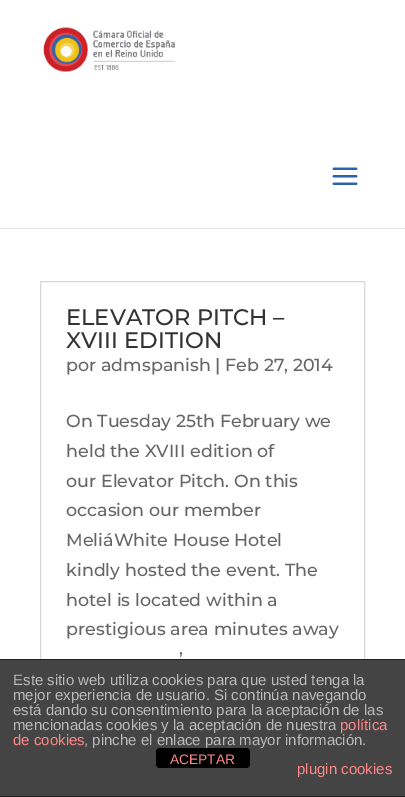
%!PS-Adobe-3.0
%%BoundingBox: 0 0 405 797
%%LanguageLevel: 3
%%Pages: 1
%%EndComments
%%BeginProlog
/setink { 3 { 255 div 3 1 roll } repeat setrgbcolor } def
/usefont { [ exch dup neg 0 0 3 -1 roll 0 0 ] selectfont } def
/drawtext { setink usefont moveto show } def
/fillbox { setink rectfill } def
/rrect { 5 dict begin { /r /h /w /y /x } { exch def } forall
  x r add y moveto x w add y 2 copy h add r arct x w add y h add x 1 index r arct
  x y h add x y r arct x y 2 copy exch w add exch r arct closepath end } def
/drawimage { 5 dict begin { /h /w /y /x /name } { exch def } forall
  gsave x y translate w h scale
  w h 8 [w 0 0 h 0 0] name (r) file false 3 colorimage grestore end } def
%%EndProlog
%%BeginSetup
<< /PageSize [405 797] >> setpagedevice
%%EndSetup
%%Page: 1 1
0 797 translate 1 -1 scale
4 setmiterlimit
0 0 405 797 255 255 255 fillbox
0 228 405 1 230 230 230 fillbox
(assets/img1.rgb) 43 27 132 45 drawimage
(assets/img2.rgb) 332 167 26 18 drawimage
216 216 216 setink
40.5 281.5 324 448 rectstroke
(ELEVATOR PITCH –) 66 325 /Montserrat-Medium 22.5 51 51 51 drawtext
(XVIII EDITION) 66 348 /Montserrat-Medium 22.5 51 51 51 drawtext
(por admspanish | Feb 27, 2014) 66 371 /Montserrat-Medium 17.5 102 102 102 drawtext
(On Tuesday 25th February we) 66 427 /Montserrat-Medium 17.5 102 102 102 drawtext
(held the XVIII edition of) 66 457 /Montserrat-Medium 17.5 102 102 102 drawtext
(our Elevator Pitch. On this) 66 487 /Montserrat-Medium 17.5 102 102 102 drawtext
(occasion our member) 66 516 /Montserrat-Medium 17.5 102 102 102 drawtext
(MeliáWhite House Hotel) 66 546 /Montserrat-Medium 17.5 102 102 102 drawtext
(kindly hosted the event. The) 66 576 /Montserrat-Medium 17.5 102 102 102 drawtext
(hotel is located within a) 66 606 /Montserrat-Medium 17.5 102 102 102 drawtext
(prestigious area minutes away) 66 635 /Montserrat-Medium 17.5 102 102 102 drawtext
(’) 179 665 /Montserrat-Medium 17.5 102 102 102 drawtext
0 660 405 136 68 68 68 fillbox
0 659 405 1 34 34 34 fillbox
0 796 405 1 34 34 34 fillbox
(Este sitio web utiliza cookies para que usted tenga la) 13 685 /LiberationSans-Regular 15 187 187 187 drawtext
(mejor experiencia de usuario. Si continúa navegando) 13 700 /LiberationSans-Regular 15 187 187 187 drawtext
(está dando su consentimiento para la aceptación de las) 13 715 /LiberationSans-Regular 15 187 187 187 drawtext
(mencionadas cookies y la aceptación de nuestra) 13 730 /LiberationSans-Regular 15 187 187 187 drawtext
(política) 340 730 /LiberationSans-Regular 15 255 136 136 drawtext
(de cookies) 13 745 /LiberationSans-Regular 15 255 136 136 drawtext
0 0 0 setink
156 748 94 20 4 rrect fill
(, pinche el enlace para mayor información.) 84 745 /LiberationSans-Regular 15 187 187 187 drawtext
(plugin cookies) 297 774 /LiberationSans-Regular 15 255 136 136 drawtext
(ACEPTAR) 170 764 /LiberationSans-Regular 13.75 255 136 136 drawtext
showpage
%%EOF
